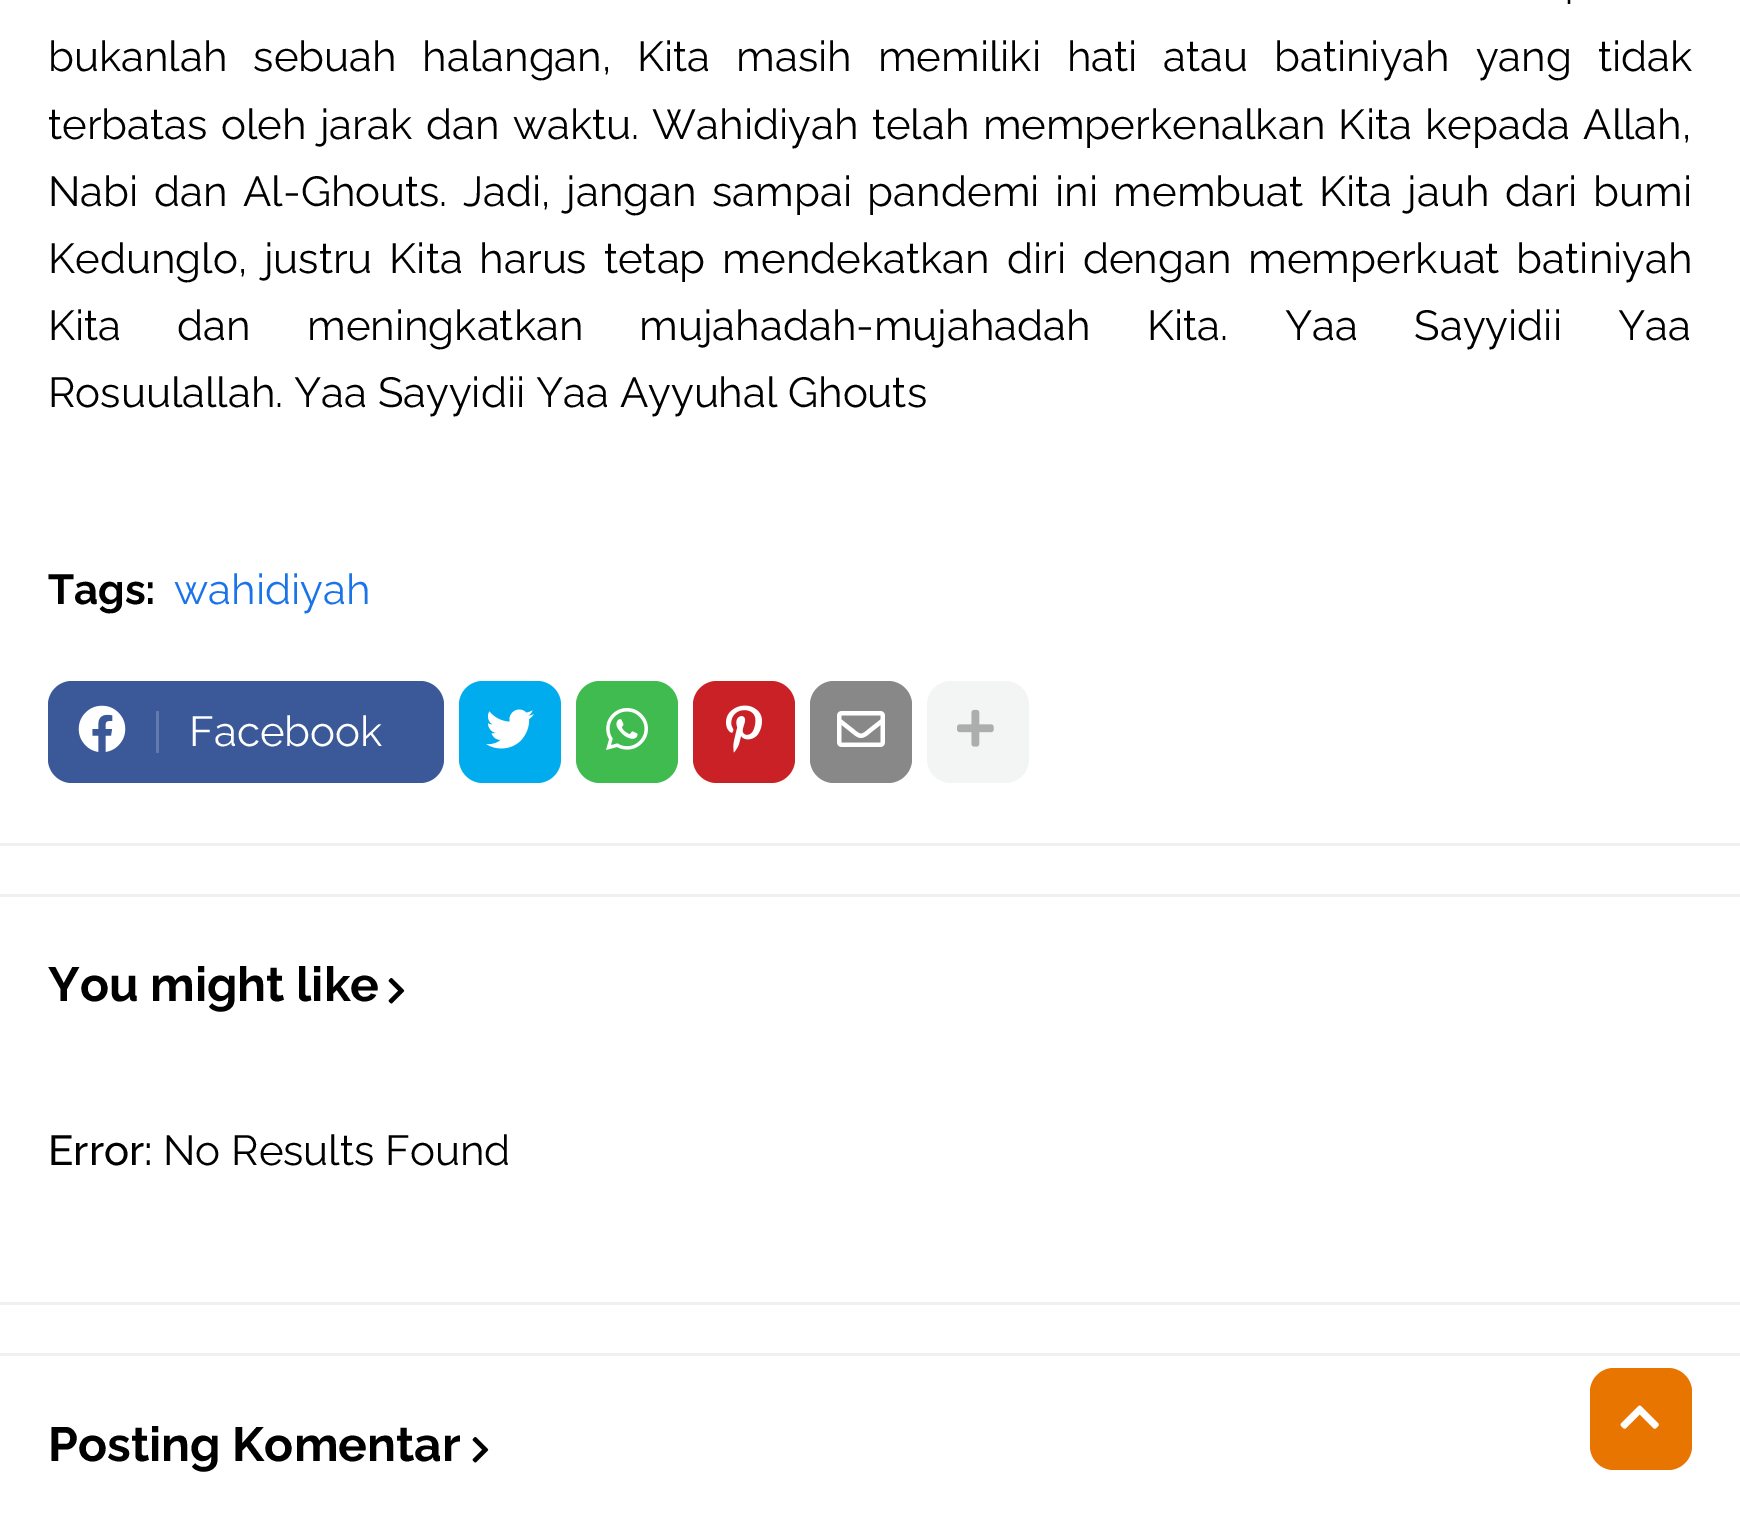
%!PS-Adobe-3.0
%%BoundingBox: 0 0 1740 1517
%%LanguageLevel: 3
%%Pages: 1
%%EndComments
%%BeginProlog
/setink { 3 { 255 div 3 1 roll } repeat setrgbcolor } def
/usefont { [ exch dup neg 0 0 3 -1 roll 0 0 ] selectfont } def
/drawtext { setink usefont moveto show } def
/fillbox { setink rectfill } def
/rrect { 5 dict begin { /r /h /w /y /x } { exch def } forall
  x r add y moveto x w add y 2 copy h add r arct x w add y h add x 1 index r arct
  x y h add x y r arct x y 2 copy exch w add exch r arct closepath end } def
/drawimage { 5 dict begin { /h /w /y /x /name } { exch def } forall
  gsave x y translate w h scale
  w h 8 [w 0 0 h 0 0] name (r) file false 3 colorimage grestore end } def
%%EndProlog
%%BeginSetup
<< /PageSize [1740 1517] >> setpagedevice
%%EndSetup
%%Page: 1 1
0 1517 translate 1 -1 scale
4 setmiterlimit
0 0 1740 1517 255 255 255 fillbox
0 843 1740 3 240 240 240 fillbox
/Raleway-Regular 42 usefont
0 0 0 setink
1565 4 moveto 4.9 0 32 (.) widthshow
48 71 moveto 15.25 0 32 (bukanlah sebuah halangan, Kita masih memiliki hati atau batiniyah yang tidak) widthshow
48 139 moveto 2.75 0 32 (terbatas oleh jarak dan waktu. Wahidiyah telah memperkenalkan Kita kepada Allah,) widthshow
48 206 moveto 4.9 0 32 (Nabi dan Al-Ghouts. Jadi, jangan sampai pandemi ini membuat Kita jauh dari bumi) widthshow
48 273 moveto 6.25 0 32 (Kedunglo, justru Kita harus tetap mendekatkan diri dengan memperkuat batiniyah) widthshow
48 340 moveto 45.5 0 32 (Kita dan meningkatkan mujahadah-mujahadah Kita.) widthshow
1285 340 moveto 45.5 0 32 (Yaa Sayyidii Yaa) widthshow
(Rosuulallah. Yaa Sayyidii Yaa Ayyuhal Ghouts) 48 407 /Raleway-Regular 42 0 0 0 drawtext
(Tags:) 48 604 /Raleway-Bold 42 0 0 0 drawtext
(wahidiyah) 174 604 /Raleway-Regular 42 26 115 232 drawtext
59 89 153 setink
48 681 396 102 24 rrect fill
(assets/img1.rgb) 78 705 48 47 drawimage
156 711 3 42 98 122 173 fillbox
(Facebook) 189 746 /Raleway-Regular 42 255 255 255 drawtext
0 172 238 setink
459 681 102 102 24 rrect fill
(assets/img2.rgb) 486 709 48 40 drawimage
63 187 80 setink
576 681 102 102 24 rrect fill
(assets/img3.rgb) 606 708 42 42 drawimage
202 33 39 setink
693 681 102 102 24 rrect fill
(assets/img4.rgb) 726 705 36 48 drawimage
136 136 136 setink
810 681 102 102 24 rrect fill
(assets/img5.rgb) 837 711 48 36 drawimage
243 245 245 setink
927 681 102 102 24 rrect fill
(assets/img6.rgb) 957 709 37 38 drawimage
0 894 1740 3 240 240 240 fillbox
0 1302 1740 3 240 240 240 fillbox
(You might like) 48 1001 /Raleway-Bold 48 0 0 0 drawtext
(assets/img7.rgb) 388 978 17 26 drawimage
(Error:) 48 1165 /Raleway-Medium 42 0 0 0 drawtext
(No Results Found) 163 1165 /Raleway-Regular 42 0 0 0 drawtext
0 1353 1740 3 240 240 240 fillbox
(Posting Komentar) 48 1461 /Raleway-Bold 48 0 0 0 drawtext
(assets/img7.rgb) 472 1437 17 26 drawimage
232 117 0 setink
1590 1368 102 102 24 rrect fill
(assets/img8.rgb) 1620 1405 39 24 drawimage
showpage
%%EOF
